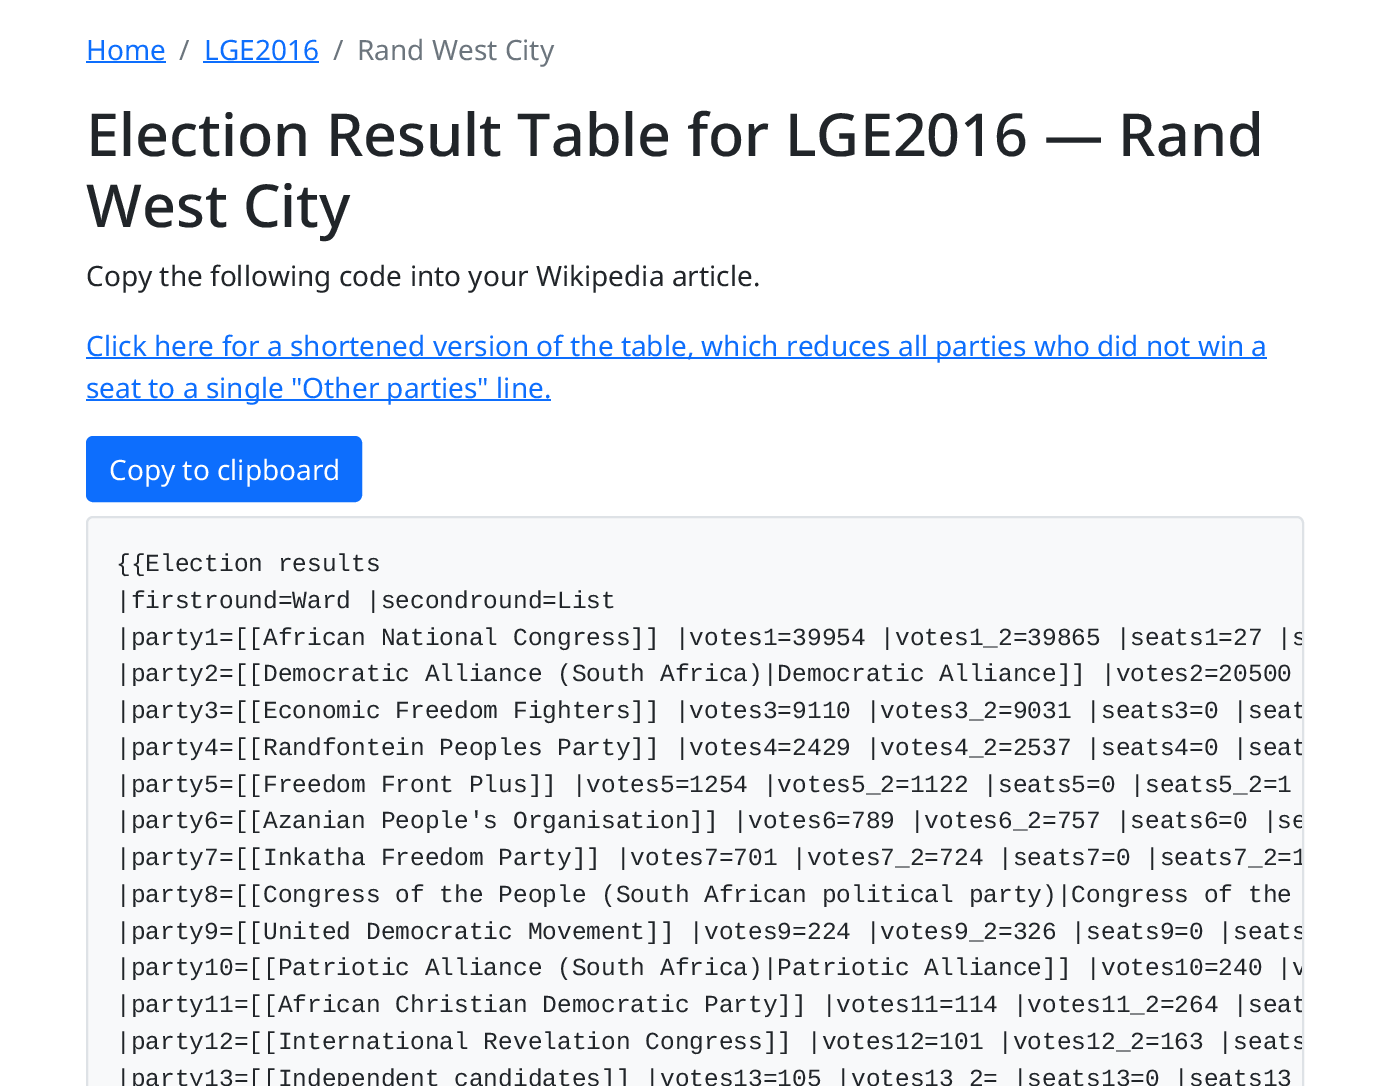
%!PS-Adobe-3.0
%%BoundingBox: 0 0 1388 1086
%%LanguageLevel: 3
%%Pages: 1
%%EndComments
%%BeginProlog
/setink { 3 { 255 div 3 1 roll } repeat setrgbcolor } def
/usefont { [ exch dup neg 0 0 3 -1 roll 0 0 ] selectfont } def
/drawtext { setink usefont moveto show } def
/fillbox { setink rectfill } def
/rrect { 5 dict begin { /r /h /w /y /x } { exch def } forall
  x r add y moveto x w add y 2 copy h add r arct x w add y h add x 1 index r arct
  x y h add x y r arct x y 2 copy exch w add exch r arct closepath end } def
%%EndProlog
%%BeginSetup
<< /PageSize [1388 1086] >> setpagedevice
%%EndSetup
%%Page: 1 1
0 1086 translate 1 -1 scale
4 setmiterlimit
0 0 1388 1086 255 255 255 fillbox
(Home) 86 60 /NotoSans-Regular 28 13 110 253 drawtext
86 61 80 2 13 110 253 fillbox
(/) 179 60 /NotoSans-Regular 28 108 117 125 drawtext
(LGE2016) 204 60 /NotoSans-Regular 28 13 110 253 drawtext
203 61 116 2 13 110 253 fillbox
(/) 333 60 /NotoSans-Regular 28 108 117 125 drawtext
(Rand West City) 357 60 /NotoSans-Regular 28 108 117 125 drawtext
(Election Result Table for LGE2016 — Rand) 86 156 /NotoSans-Medium 59.3 33 37 41 drawtext
(West City) 86 227 /NotoSans-Medium 59.3 33 37 41 drawtext
(Copy the following code into your Wikipedia article.) 86 286 /NotoSans-Regular 28 33 37 41 drawtext
86 357 1181 2 13 110 253 fillbox
(Click here for a shortened version of the table, which reduces all parties who did not win a) 86 356 /NotoSans-Regular 28 13 110 253 drawtext
86 399 465 2 13 110 253 fillbox
(seat to a single "Other parties" line.) 86 398 /NotoSans-Regular 28 13 110 253 drawtext
87 437 274 64 6 rrect gsave fill grestore
2 setlinewidth
stroke
(Copy to clipboard) 109 480 /NotoSans-Regular 28 255 255 255 drawtext
248 249 250 setink
87 517 1216 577 6 rrect gsave fill grestore
222 226 230 setink
stroke
({{Election results) 116 571 /LiberationMono-Regular 24.5 33 37 41 drawtext
(|firstround=Ward |secondround=List) 116 608 /LiberationMono-Regular 24.5 33 37 41 drawtext
gsave
88 518 1214 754 5 rrect clip newpath
(|party1=[[African National Congress]] |votes1=39954 |votes1_2=39865 |seats1=27 |s) 116 645 /LiberationMono-Regular 24.5 33 37 41 drawtext
grestore
(|party2=[[Democratic Alliance \(South Africa\)|Democratic Alliance]] |votes2=20500) 116 681 /LiberationMono-Regular 24.5 33 37 41 drawtext
gsave
88 518 1214 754 5 rrect clip newpath
(|party3=[[Economic Freedom Fighters]] |votes3=9110 |votes3_2=9031 |seats3=0 |seat) 116 718 /LiberationMono-Regular 24.5 33 37 41 drawtext
(|party4=[[Randfontein Peoples Party]] |votes4=2429 |votes4_2=2537 |seats4=0 |seat) 116 755 /LiberationMono-Regular 24.5 33 37 41 drawtext
grestore
(|party5=[[Freedom Front Plus]] |votes5=1254 |votes5_2=1122 |seats5=0 |seats5_2=1) 116 792 /LiberationMono-Regular 24.5 33 37 41 drawtext
gsave
88 518 1214 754 5 rrect clip newpath
(|party6=[[Azanian People's Organisation]] |votes6=789 |votes6_2=757 |seats6=0 |se) 116 828 /LiberationMono-Regular 24.5 33 37 41 drawtext
(|party7=[[Inkatha Freedom Party]] |votes7=701 |votes7_2=724 |seats7=0 |seats7_2=1) 116 865 /LiberationMono-Regular 24.5 33 37 41 drawtext
grestore
(|party8=[[Congress of the People \(South African political party\)|Congress of the) 116 902 /LiberationMono-Regular 24.5 33 37 41 drawtext
gsave
88 518 1214 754 5 rrect clip newpath
(|party9=[[United Democratic Movement]] |votes9=224 |votes9_2=326 |seats9=0 |seats) 116 939 /LiberationMono-Regular 24.5 33 37 41 drawtext
(|party10=[[Patriotic Alliance \(South Africa\)|Patriotic Alliance]] |votes10=240 |v) 116 975 /LiberationMono-Regular 24.5 33 37 41 drawtext
(|party11=[[African Christian Democratic Party]] |votes11=114 |votes11_2=264 |seat) 116 1012 /LiberationMono-Regular 24.5 33 37 41 drawtext
(|party12=[[International Revelation Congress]] |votes12=101 |votes12_2=163 |seats) 116 1049 /LiberationMono-Regular 24.5 33 37 41 drawtext
grestore
(|party13=[[Independent candidates]] |votes13=105 |votes13_2= |seats13=0 |seats13) 116 1086 /LiberationMono-Regular 24.5 33 37 41 drawtext
showpage
%%EOF
